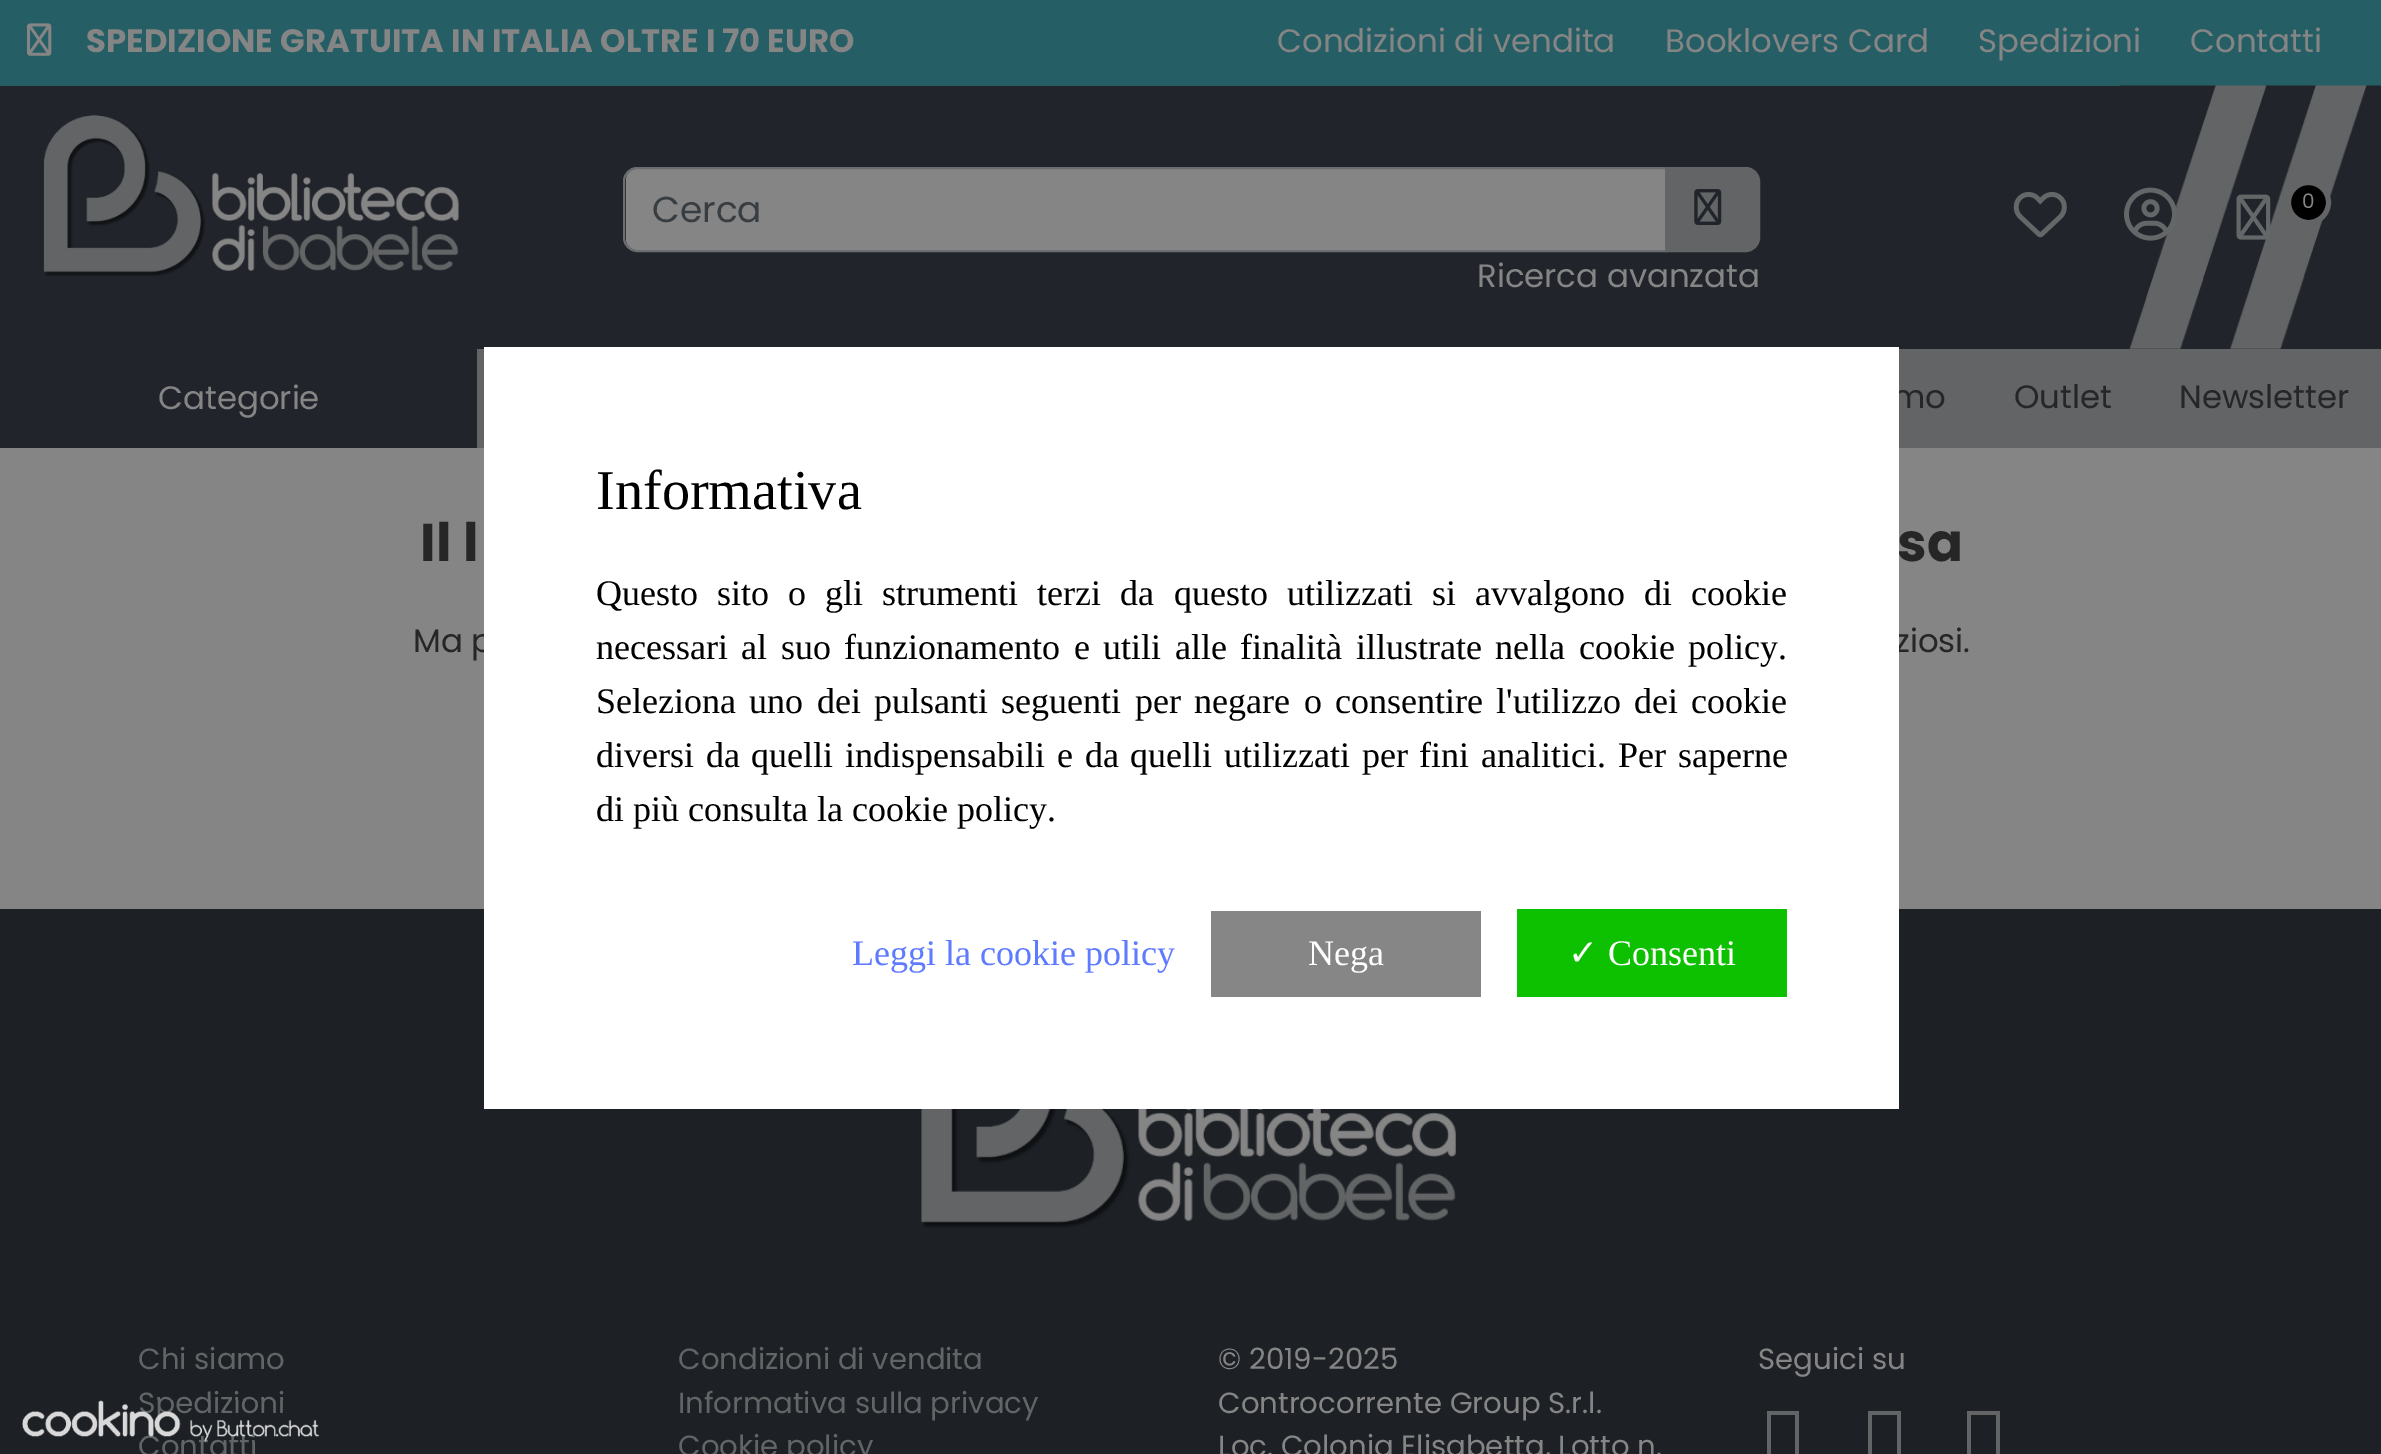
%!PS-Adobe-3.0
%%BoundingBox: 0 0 2381 1454
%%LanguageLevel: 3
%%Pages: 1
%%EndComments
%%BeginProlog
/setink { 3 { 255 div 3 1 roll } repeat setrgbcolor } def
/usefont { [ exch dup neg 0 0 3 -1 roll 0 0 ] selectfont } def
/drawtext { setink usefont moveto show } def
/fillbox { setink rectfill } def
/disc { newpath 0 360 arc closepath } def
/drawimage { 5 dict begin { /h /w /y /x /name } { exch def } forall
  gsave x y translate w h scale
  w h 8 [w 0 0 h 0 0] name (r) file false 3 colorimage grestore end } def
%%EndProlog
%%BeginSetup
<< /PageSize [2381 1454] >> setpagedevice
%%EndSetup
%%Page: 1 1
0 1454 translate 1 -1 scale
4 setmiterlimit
0 0 2381 1454 133 133 133 fillbox
0 0 2381 86 38 94 102 fillbox
(assets/img1.rgb) 27 23 25 33 drawimage
(SPEDIZIONE GRATUITA IN ITALIA OLTRE I 70 EURO) 86 52 /Poppins-Bold 32.4 133 133 133 drawtext
(Condizioni di vendita) 1277 52 /Poppins-Regular 32.4 133 133 133 drawtext
(Booklovers Card) 1665 52 /Poppins-Regular 32.4 133 133 133 drawtext
(Spedizioni) 1978 52 /Poppins-Regular 32.4 133 133 133 drawtext
(Contatti) 2190 52 /Poppins-Regular 32.4 133 133 133 drawtext
0 86 2381 263 33 36 43 fillbox
(assets/img2.rgb) 2119 85 262 264 drawimage
(assets/img3.rgb) 43 115 416 162 drawimage
133 133 133 setink
637 169 moveto 1665 169 lineto 1665 250 lineto 637 250 lineto 631 250 626 245 626 239 curveto 626 180 lineto 626 174 631 169 637 169 curveto closepath fill
107 110 113 setink
2 setlinewidth
637 168 moveto 1666 168 lineto 1666 251 lineto 637 251 lineto 630 251 624 245 624 238 curveto 624 181 lineto 624 174 630 168 637 168 curveto closepath stroke
(Cerca) 652 222 /Poppins-Regular 36 56 61 65 drawtext
98 100 101 setink
1666 168 moveto 1746 168 lineto 1753 168 1759 174 1759 181 curveto 1759 238 lineto 1759 245 1753 251 1746 251 curveto 1666 251 lineto closepath gsave fill grestore
stroke
(assets/img4.rgb) 1694 189 28 36 drawimage
(Ricerca avanzata) 1477 287 /Poppins-Regular 32.4 133 133 133 drawtext
(assets/img5.rgb) 2013 192 54 46 drawimage
(assets/img6.rgb) 2124 187 53 54 drawimage
(assets/img7.rgb) 2236 194 35 46 drawimage
0 0 0 setink
2308.5 202.5 20 disc gsave fill grestore
98 100 101 setink
5 setlinewidth
stroke
(0) 2302 208 /Poppins-Regular 20 133 133 133 drawtext
477 349 1904 99 98 100 102 fillbox
0 349 477 99 33 36 43 fillbox
(Categorie) 158 409 /Poppins-Regular 32.4 133 133 133 drawtext
(mo) 1892 408 /Poppins-Regular 32.4 38 38 38 drawtext
(Outlet) 2014 408 /Poppins-Regular 32.4 38 38 38 drawtext
(Newsletter) 2179 408 /Poppins-Regular 32.4 38 38 38 drawtext
(Il l) 420 561 /Poppins-Bold 53 38 38 38 drawtext
(sa) 1897 561 /Poppins-Bold 53 38 38 38 drawtext
(Ma p) 413 652 /Poppins-Regular 32.4 38 38 38 drawtext
(ziosi.) 1895 652 /Poppins-Regular 32.4 38 38 38 drawtext
0 909 2381 545 29 32 37 fillbox
(assets/img8.rgb) 921 1109 535 119 drawimage
(Chi siamo) 138 1369 /Poppins-Regular 29.2 98 100 101 drawtext
(Spedizioni) 138 1413 /Poppins-Regular 29.2 98 100 101 drawtext
(Contatti) 138 1456 /Poppins-Regular 29.2 98 100 101 drawtext
(Condizioni di vendita) 678 1369 /Poppins-Regular 29.2 98 100 101 drawtext
(Informativa sulla privacy) 678 1413 /Poppins-Regular 29.2 98 100 101 drawtext
(Cookie policy) 678 1456 /Poppins-Regular 29.2 98 100 101 drawtext
(© 2019-2025) 1218 1369 /Poppins-Regular 29.2 133 133 133 drawtext
(Controcorrente Group S.r.l.) 1218 1413 /Poppins-Regular 29.2 133 133 133 drawtext
(Loc. Colonia Elisabetta, Lotto n.) 1218 1456 /Poppins-Regular 29.2 133 133 133 drawtext
(Seguici su) 1758 1369 /Poppins-Regular 29.2 133 133 133 drawtext
98 100 101 setink
1767 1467 moveto 1767 1411 lineto 1799 1411 lineto 1799 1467 lineto closepath 1771 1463 moveto 1795 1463 lineto 1795 1415 lineto 1771 1415 lineto closepath fill
1868 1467 moveto 1868 1411 lineto 1901 1411 lineto 1901 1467 lineto closepath 1872 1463 moveto 1897 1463 lineto 1897 1415 lineto 1872 1415 lineto closepath fill
1967 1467 moveto 1967 1411 lineto 2000 1411 lineto 2000 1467 lineto closepath 1971 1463 moveto 1996 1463 lineto 1996 1415 lineto 1971 1415 lineto closepath fill
484 347 1415 762 255 255 255 fillbox
(Informativa) 596 509 /LiberationSerif-Regular 56.25 0 0 0 drawtext
/LiberationSerif-Regular 36 usefont
596 605 moveto 10.1 0 32 (Questo sito o gli strumenti terzi da questo utilizzati si avvalgono di cookie) widthshow
596 659 moveto 4.5 0 32 (necessari al suo funzionamento e utili alle finalità illustrate nella cookie policy.) widthshow
596 713 moveto 4.4 0 32 (Seleziona uno dei pulsanti seguenti per negare o consentire l'utilizzo dei cookie) widthshow
596 767 moveto 2.75 0 32 (diversi da quelli indispensabili e da quelli utilizzati per fini analitici. Per saperne) widthshow
(di più consulta la cookie policy.) 596 821 /LiberationSerif-Regular 36 0 0 0 drawtext
(Leggi la cookie policy) 852 965 /LiberationSerif-Regular 36 94 122 255 drawtext
1211 911 270 86 134 134 134 fillbox
(Nega) 1308 965 /LiberationSerif-Regular 36 255 255 255 drawtext
1517 909 270 88 13 192 0 fillbox
(✓) 1568 965 /DejaVuSans-Regular 36 255 255 255 drawtext
(Consenti) 1608 965 /LiberationSerif-Regular 36 255 255 255 drawtext
(assets/img9.rgb) 22 1400 297 42 drawimage
showpage
%%EOF
